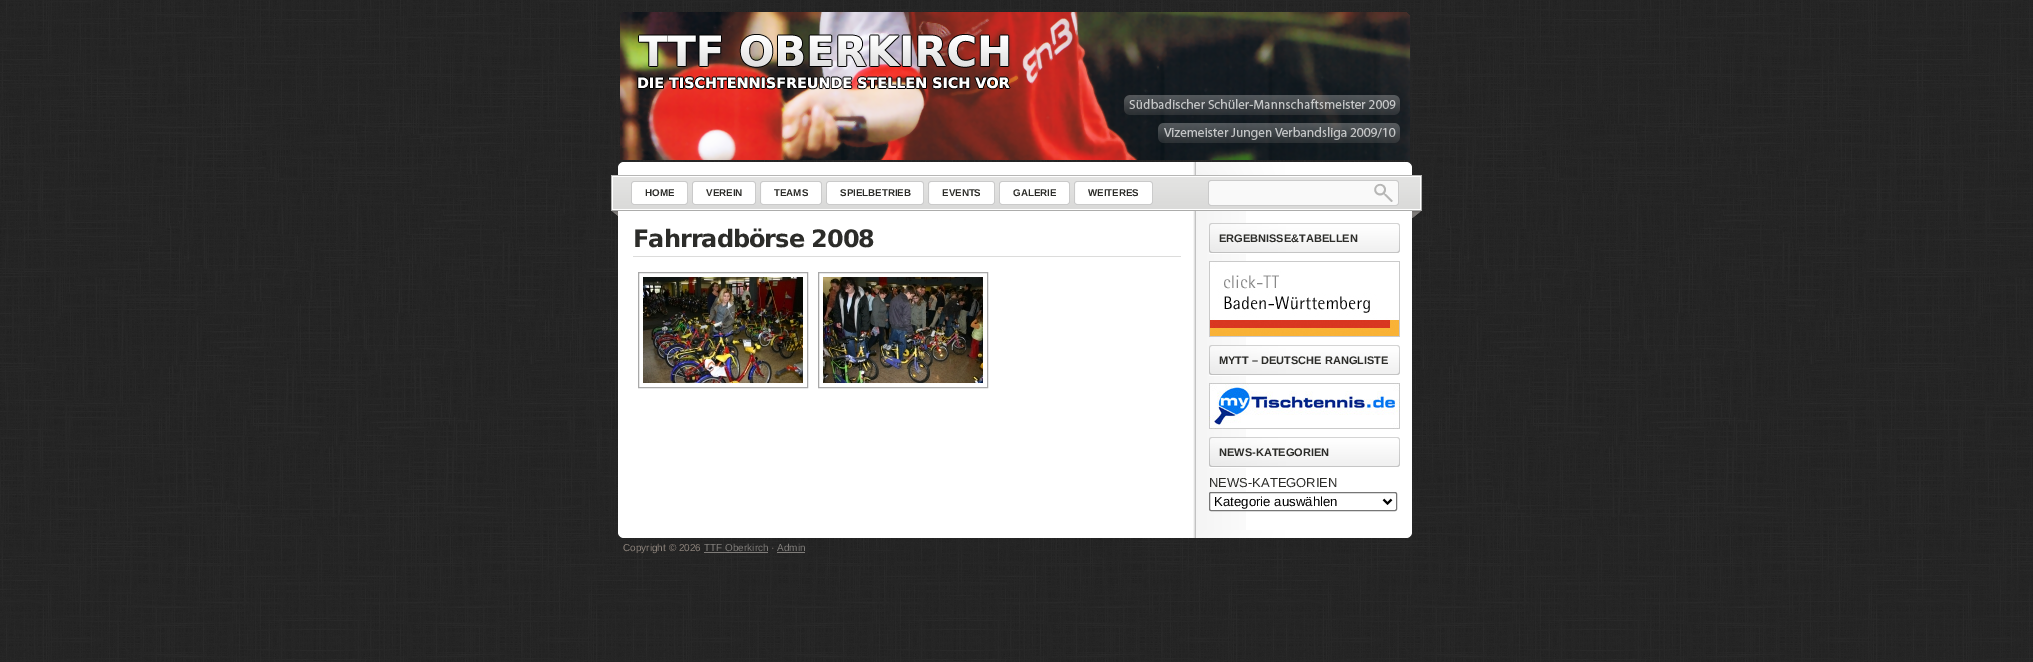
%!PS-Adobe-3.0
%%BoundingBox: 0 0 2033 662
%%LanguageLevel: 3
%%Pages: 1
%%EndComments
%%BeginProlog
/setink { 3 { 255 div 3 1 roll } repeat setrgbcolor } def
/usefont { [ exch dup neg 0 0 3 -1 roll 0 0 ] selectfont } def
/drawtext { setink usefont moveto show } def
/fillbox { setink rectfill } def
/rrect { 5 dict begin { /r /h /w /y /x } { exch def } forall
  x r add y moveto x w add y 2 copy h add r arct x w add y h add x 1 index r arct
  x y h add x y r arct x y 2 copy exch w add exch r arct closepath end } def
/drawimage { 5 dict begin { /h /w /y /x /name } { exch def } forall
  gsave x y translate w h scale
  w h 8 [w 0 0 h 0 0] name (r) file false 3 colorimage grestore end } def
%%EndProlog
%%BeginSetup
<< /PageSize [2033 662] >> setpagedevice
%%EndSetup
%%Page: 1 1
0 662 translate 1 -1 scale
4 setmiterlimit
0 0 2033 662 255 255 255 fillbox
(assets/img1.rgb) 0 0 2033 662 drawimage
(assets/img2.rgb) 620 12 790 148 drawimage
(assets/img3.rgb) 611 162 811 56 drawimage
(assets/img4.rgb) 631 181 54 24 drawimage
(assets/img5.rgb) 685 181 3 24 drawimage
(HOME) 645 196 /LiberationSans-Bold 9.75 44 44 41 drawtext
(assets/img6.rgb) 692 181 61 24 drawimage
(assets/img7.rgb) 753 181 3 24 drawimage
(VEREIN) 706 196 /LiberationSans-Bold 9.75 44 44 41 drawtext
(assets/img8.rgb) 760 181 59 24 drawimage
(assets/img7.rgb) 819 181 3 24 drawimage
(TEAMS) 774 196 /LiberationSans-Bold 9.75 44 44 41 drawtext
(assets/img9.rgb) 826 181 95 24 drawimage
(assets/img5.rgb) 921 181 3 24 drawimage
(SPIELBETRIEB) 840 196 /LiberationSans-Bold 9.75 44 44 41 drawtext
(assets/img10.rgb) 928 181 64 24 drawimage
(assets/img7.rgb) 992 181 3 24 drawimage
(EVENTS) 942 196 /LiberationSans-Bold 9.75 44 44 41 drawtext
(assets/img11.rgb) 999 181 68 24 drawimage
(assets/img7.rgb) 1067 181 3 24 drawimage
(GALERIE) 1013 196 /LiberationSans-Bold 9.75 44 44 41 drawtext
(assets/img12.rgb) 1074 181 76 24 drawimage
(assets/img7.rgb) 1150 181 3 24 drawimage
(WEITERES) 1088 196 /LiberationSans-Bold 9.75 44 44 41 drawtext
(assets/img13.rgb) 1208 180 191 26 drawimage
618 211 794 319 255 255 255 fillbox
(assets/img14.rgb) 1193 211 53 319 drawimage
633 256 548 1 220 220 219 fillbox
/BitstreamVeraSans-Bold 24 usefont
44 44 41 setink
633 247 moveto -1 0 (Fahrradbörse 2008) ashow
169 169 169 setink
638.5 272.5 169 115 rectstroke
(assets/img15.rgb) 643 277 160 106 drawimage
818.5 272.5 169 115 rectstroke
(assets/img16.rgb) 823 277 160 106 drawimage
1209 253 37 1 255 255 255 fillbox
(assets/img17.rgb) 1209 223 191 30 drawimage
(ERGEBNISSE&TABELLEN) 1219 242 /LiberationSans-Bold 11 44 44 41 drawtext
(assets/img18.rgb) 1209 261 191 76 drawimage
1209 375 37 1 255 255 255 fillbox
(assets/img17.rgb) 1209 345 191 30 drawimage
(MYTT – DEUTSCHE RANGLISTE) 1219 364 /LiberationSans-Bold 11 44 44 41 drawtext
(assets/img19.rgb) 1209 383 191 46 drawimage
1209 467 37 1 255 255 255 fillbox
(assets/img17.rgb) 1209 437 191 30 drawimage
(NEWS-KATEGORIEN) 1219 456 /LiberationSans-Bold 11 44 44 41 drawtext
(NEWS-KATEGORIEN) 1209 487 /LiberationSans-Regular 13 44 44 41 drawtext
255 255 255 setink
1209.5 492.5 187 18 1.5 rrect gsave fill grestore
118 118 118 setink
stroke
0 0 0 setink
2 setlinewidth
1383.5 499.5 moveto 1387.5 503.5 lineto 1391.5 499.5 lineto stroke
(Kategorie auswählen) 1214 506 /LiberationSans-Regular 13.25 0 0 0 drawtext
(assets/img20.rgb) 618 530 794 8 drawimage
(Copyright © 2026) 623 551 /LiberationSans-Regular 10 141 131 123 drawtext
(TTF Oberkirch) 704 551 /LiberationSans-Regular 10 128 125 122 drawtext
704 552 64 1 128 125 122 fillbox
(·) 771 551 /LiberationSans-Regular 10 141 131 123 drawtext
(Admin) 777 551 /LiberationSans-Regular 10 128 125 122 drawtext
777 552 28 1 128 125 122 fillbox
showpage
%%EOF
